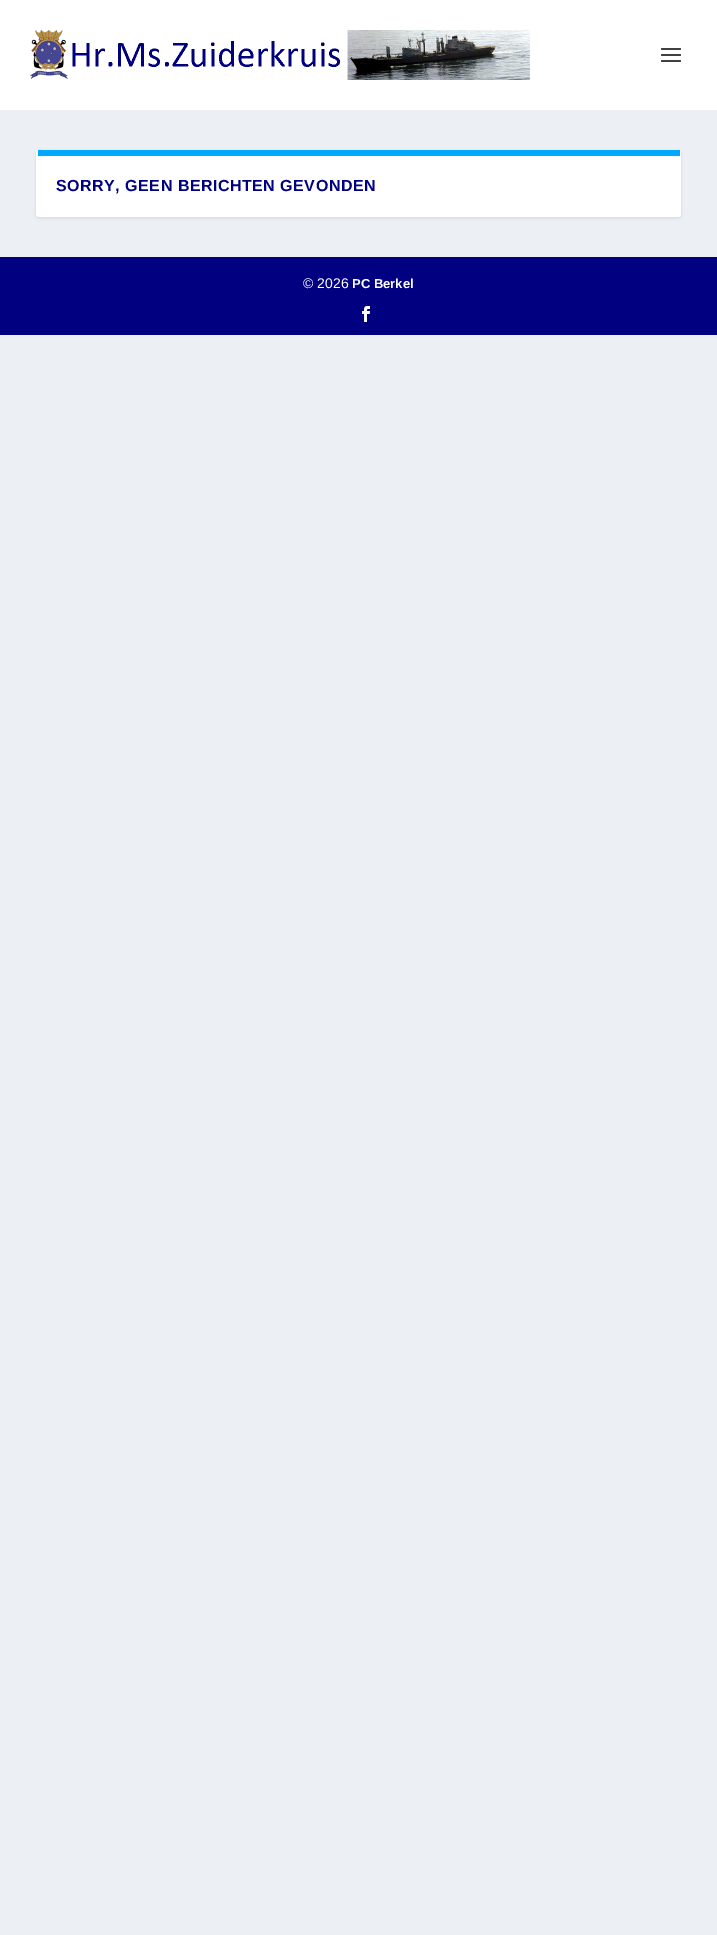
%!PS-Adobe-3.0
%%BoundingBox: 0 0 717 1935
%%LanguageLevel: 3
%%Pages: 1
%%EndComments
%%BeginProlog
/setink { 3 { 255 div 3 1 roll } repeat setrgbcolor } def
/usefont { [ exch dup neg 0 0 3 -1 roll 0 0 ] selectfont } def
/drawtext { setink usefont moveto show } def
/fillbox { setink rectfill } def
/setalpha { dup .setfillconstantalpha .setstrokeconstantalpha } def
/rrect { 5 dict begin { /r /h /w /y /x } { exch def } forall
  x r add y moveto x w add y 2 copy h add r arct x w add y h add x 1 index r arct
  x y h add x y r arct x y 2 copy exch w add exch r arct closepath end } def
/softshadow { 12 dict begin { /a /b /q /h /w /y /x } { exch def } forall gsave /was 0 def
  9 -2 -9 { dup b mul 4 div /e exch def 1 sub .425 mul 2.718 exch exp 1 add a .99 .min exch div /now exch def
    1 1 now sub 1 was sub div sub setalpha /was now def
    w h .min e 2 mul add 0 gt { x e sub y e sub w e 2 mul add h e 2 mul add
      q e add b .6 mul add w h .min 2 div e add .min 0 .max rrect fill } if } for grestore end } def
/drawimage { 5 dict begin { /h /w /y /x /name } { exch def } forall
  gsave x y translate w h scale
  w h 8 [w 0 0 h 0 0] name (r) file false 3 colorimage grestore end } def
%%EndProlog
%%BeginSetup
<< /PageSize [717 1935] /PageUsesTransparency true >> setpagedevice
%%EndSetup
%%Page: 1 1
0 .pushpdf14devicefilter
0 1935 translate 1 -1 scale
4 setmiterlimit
0 0 717 1935 236 240 245 fillbox
0 0 717 110 255 255 255 fillbox
(assets/img1.rgb) 30 30 500 50 drawimage
64 64 64 setink
661 48 20 2 1 rrect fill
661 54 20 2 1 rrect fill
661 60 20 2 1 rrect fill
0 0 0 setink
36 151 645 67 3 1.5 0.1 softshadow
255 255 255 setink
36 150 645 67 3 rrect fill
38 150 642 6 0 168 255 fillbox
/LiberationSans-Bold 16 usefont
0 0 128 setink
56 191 moveto 0.5 0 (SORRY, GEEN BERICHTEN GEVONDEN) ashow
0 257 717 78 0 0 128 fillbox
(© 2026) 303 288 /LiberationSans-Regular 14 255 255 255 drawtext
(PC Berkel) 352 288 /LiberationSans-Bold 13 255 255 255 drawtext
(assets/img2.rgb) 362 306 8 16 drawimage
.poppdf14devicefilter showpage
%%EOF
